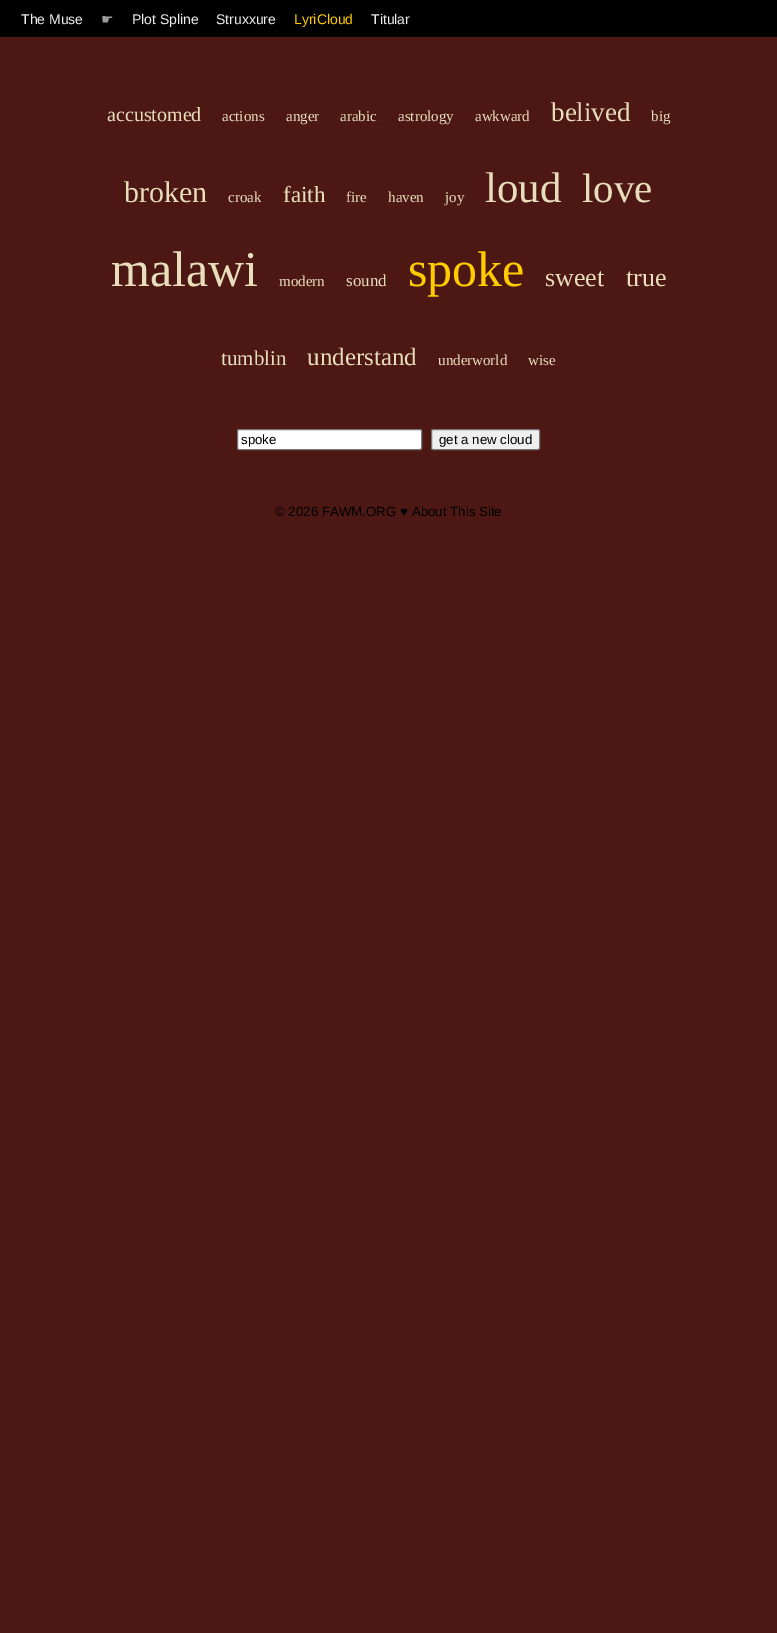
%!PS-Adobe-3.0
%%BoundingBox: 0 0 777 1633
%%LanguageLevel: 3
%%Pages: 1
%%EndComments
%%BeginProlog
/setink { 3 { 255 div 3 1 roll } repeat setrgbcolor } def
/usefont { [ exch dup neg 0 0 3 -1 roll 0 0 ] selectfont } def
/drawtext { setink usefont moveto show } def
/fillbox { setink rectfill } def
/rrect { 5 dict begin { /r /h /w /y /x } { exch def } forall
  x r add y moveto x w add y 2 copy h add r arct x w add y h add x 1 index r arct
  x y h add x y r arct x y 2 copy exch w add exch r arct closepath end } def
%%EndProlog
%%BeginSetup
<< /PageSize [777 1633] >> setpagedevice
%%EndSetup
%%Page: 1 1
0 1633 translate 1 -1 scale
4 setmiterlimit
0 0 777 1633 77 24 20 fillbox
0 0 777 37 0 0 0 fillbox
(The Muse) 21 24 /LiberationSans-Regular 14 238 238 238 drawtext
(☛) 101 24 /DejaVuSans-Regular 14 153 153 153 drawtext
(Plot Spline) 132 24 /LiberationSans-Regular 14 238 238 238 drawtext
(Struxxure) 216 24 /LiberationSans-Regular 14 238 238 238 drawtext
(LyriCloud) 294 24 /LiberationSans-Regular 14 255 204 0 drawtext
(Titular) 371 24 /LiberationSans-Regular 14 238 238 238 drawtext
(accustomed) 107 121 /LiberationSerif-Regular 20 232 222 187 drawtext
(actions) 222 121 /LiberationSerif-Regular 15 232 222 187 drawtext
(anger) 286 121 /LiberationSerif-Regular 15 232 222 187 drawtext
(arabic) 340 121 /LiberationSerif-Regular 15 232 222 187 drawtext
(astrology) 398 121 /LiberationSerif-Regular 15 232 222 187 drawtext
(awkward) 475 121 /LiberationSerif-Regular 15 232 222 187 drawtext
(belived) 551 121 /LiberationSerif-Regular 27 232 222 187 drawtext
(big) 651 121 /LiberationSerif-Regular 15 232 222 187 drawtext
(broken) 124 202 /LiberationSerif-Regular 30 232 222 187 drawtext
(croak) 228 202 /LiberationSerif-Regular 15 232 222 187 drawtext
(faith) 283 202 /LiberationSerif-Regular 23 232 222 187 drawtext
(fire) 346 202 /LiberationSerif-Regular 15 232 222 187 drawtext
(haven) 388 202 /LiberationSerif-Regular 15 232 222 187 drawtext
(joy) 445 202 /LiberationSerif-Regular 15 232 222 187 drawtext
(loud) 485 202 /LiberationSerif-Regular 43 232 222 187 drawtext
(love) 582 202 /LiberationSerif-Regular 41 232 222 187 drawtext
(malawi) 111 286 /LiberationSerif-Regular 50 232 222 187 drawtext
(modern) 279 286 /LiberationSerif-Regular 15 232 222 187 drawtext
(sound) 346 286 /LiberationSerif-Regular 17 232 222 187 drawtext
(spoke) 408 286 /LiberationSerif-Regular 50 255 204 0 drawtext
(sweet) 545 286 /LiberationSerif-Regular 26 232 222 187 drawtext
(true) 626 286 /LiberationSerif-Regular 26 232 222 187 drawtext
(tumblin) 221 365 /LiberationSerif-Regular 21 232 222 187 drawtext
(understand) 307 365 /LiberationSerif-Regular 25 232 222 187 drawtext
(underworld) 438 365 /LiberationSerif-Regular 15 232 222 187 drawtext
(wise) 528 365 /LiberationSerif-Regular 15 232 222 187 drawtext
255 255 255 setink
237.5 429.5 184 20 1.5 rrect gsave fill grestore
118 118 118 setink
stroke
(spoke) 241 444 /LiberationSans-Regular 13.3 0 0 0 drawtext
239 239 239 setink
431.5 429.5 108 20 1.5 rrect gsave fill grestore
118 118 118 setink
stroke
(get a new cloud) 439 444 /LiberationSans-Regular 13.3 0 0 0 drawtext
(© 2026 FAWM.ORG ♥ About This Site) 275 516 /LiberationSans-Regular 13.3 0 0 0 drawtext
showpage
%%EOF
